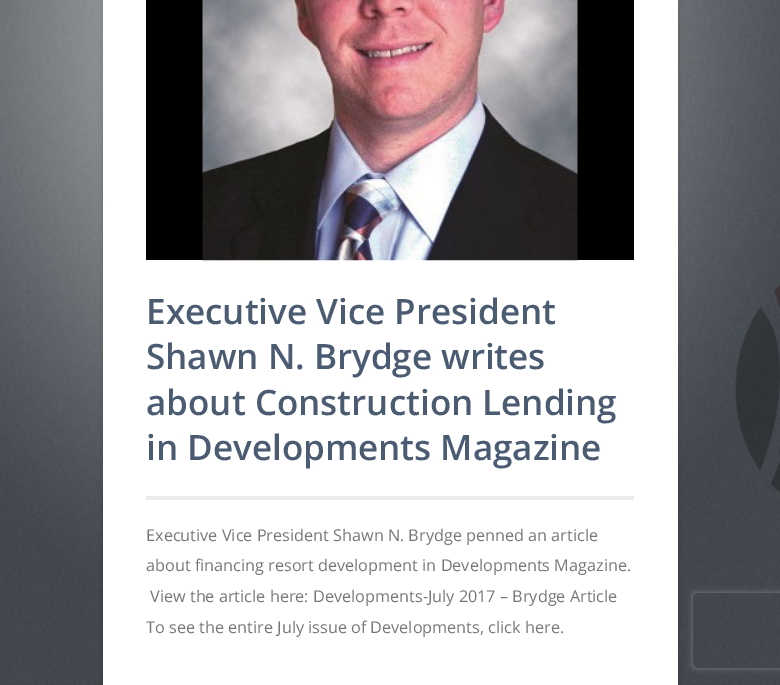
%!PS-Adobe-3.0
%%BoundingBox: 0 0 780 685
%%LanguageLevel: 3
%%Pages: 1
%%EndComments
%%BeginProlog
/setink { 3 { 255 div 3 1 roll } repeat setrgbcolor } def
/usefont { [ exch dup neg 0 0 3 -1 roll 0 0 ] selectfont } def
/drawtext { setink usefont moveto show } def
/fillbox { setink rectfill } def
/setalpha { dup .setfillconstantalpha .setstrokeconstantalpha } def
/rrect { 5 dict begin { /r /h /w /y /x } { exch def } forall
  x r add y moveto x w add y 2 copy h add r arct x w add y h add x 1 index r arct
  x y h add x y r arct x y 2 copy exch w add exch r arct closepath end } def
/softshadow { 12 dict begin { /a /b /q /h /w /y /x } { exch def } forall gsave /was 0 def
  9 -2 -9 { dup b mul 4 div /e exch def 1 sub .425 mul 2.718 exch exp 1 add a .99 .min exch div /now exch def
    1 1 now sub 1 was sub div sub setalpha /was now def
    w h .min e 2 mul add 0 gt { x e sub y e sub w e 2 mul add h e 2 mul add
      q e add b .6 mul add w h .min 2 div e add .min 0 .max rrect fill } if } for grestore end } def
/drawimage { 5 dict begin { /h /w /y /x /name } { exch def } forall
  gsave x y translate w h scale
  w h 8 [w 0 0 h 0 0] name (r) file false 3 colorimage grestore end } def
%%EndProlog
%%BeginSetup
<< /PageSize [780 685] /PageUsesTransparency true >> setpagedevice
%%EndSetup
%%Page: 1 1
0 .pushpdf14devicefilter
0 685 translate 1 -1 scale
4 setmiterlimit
0 0 780 685 255 255 255 fillbox
(assets/img1.rgb) 0 0 780 685 drawimage
0 0 0 setink
103 -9 575 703 0 3 0.15 softshadow
103 0 575 685 255 255 255 fillbox
146 0 488 260 0 0 0 fillbox
(assets/img2.rgb) 202 0 376 261 drawimage
146 496 488 4 235 235 235 fillbox
(Executive Vice President) 146 324 /OpenSans-SemiBold 35 75 92 114 drawtext
(Shawn N. Brydge writes) 146 369 /OpenSans-SemiBold 35 75 92 114 drawtext
(about Construction Lending) 146 415 /OpenSans-SemiBold 35 75 92 114 drawtext
(in Developments Magazine) 146 460 /OpenSans-SemiBold 35 75 92 114 drawtext
(Executive Vice President Shawn N. Brydge penned an article) 146 541 /OpenSans-Regular 16.25 119 119 119 drawtext
(about financing resort development in Developments Magazine.) 146 571 /OpenSans-Regular 16.25 119 119 119 drawtext
(View the article here: Developments-July 2017 – Brydge Article) 150 602 /OpenSans-Regular 16.25 119 119 119 drawtext
(To see the entire July issue of Developments, click here.) 146 633 /OpenSans-Regular 16.25 119 119 119 drawtext
gsave
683 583 moveto 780 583 lineto 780 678 lineto 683 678 lineto closepath 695.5 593 moveto 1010.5 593 lineto 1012 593 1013 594 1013 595.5 curveto 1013 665.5 lineto 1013 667 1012 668 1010.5 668 curveto 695.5 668 lineto 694 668 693 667 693 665.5 curveto 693 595.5 lineto 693 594 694 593 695.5 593 curveto closepath eoclip newpath
128 128 128 setink
693 593 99 75 2.5 3 1 softshadow
grestore
.poppdf14devicefilter showpage
%%EOF
